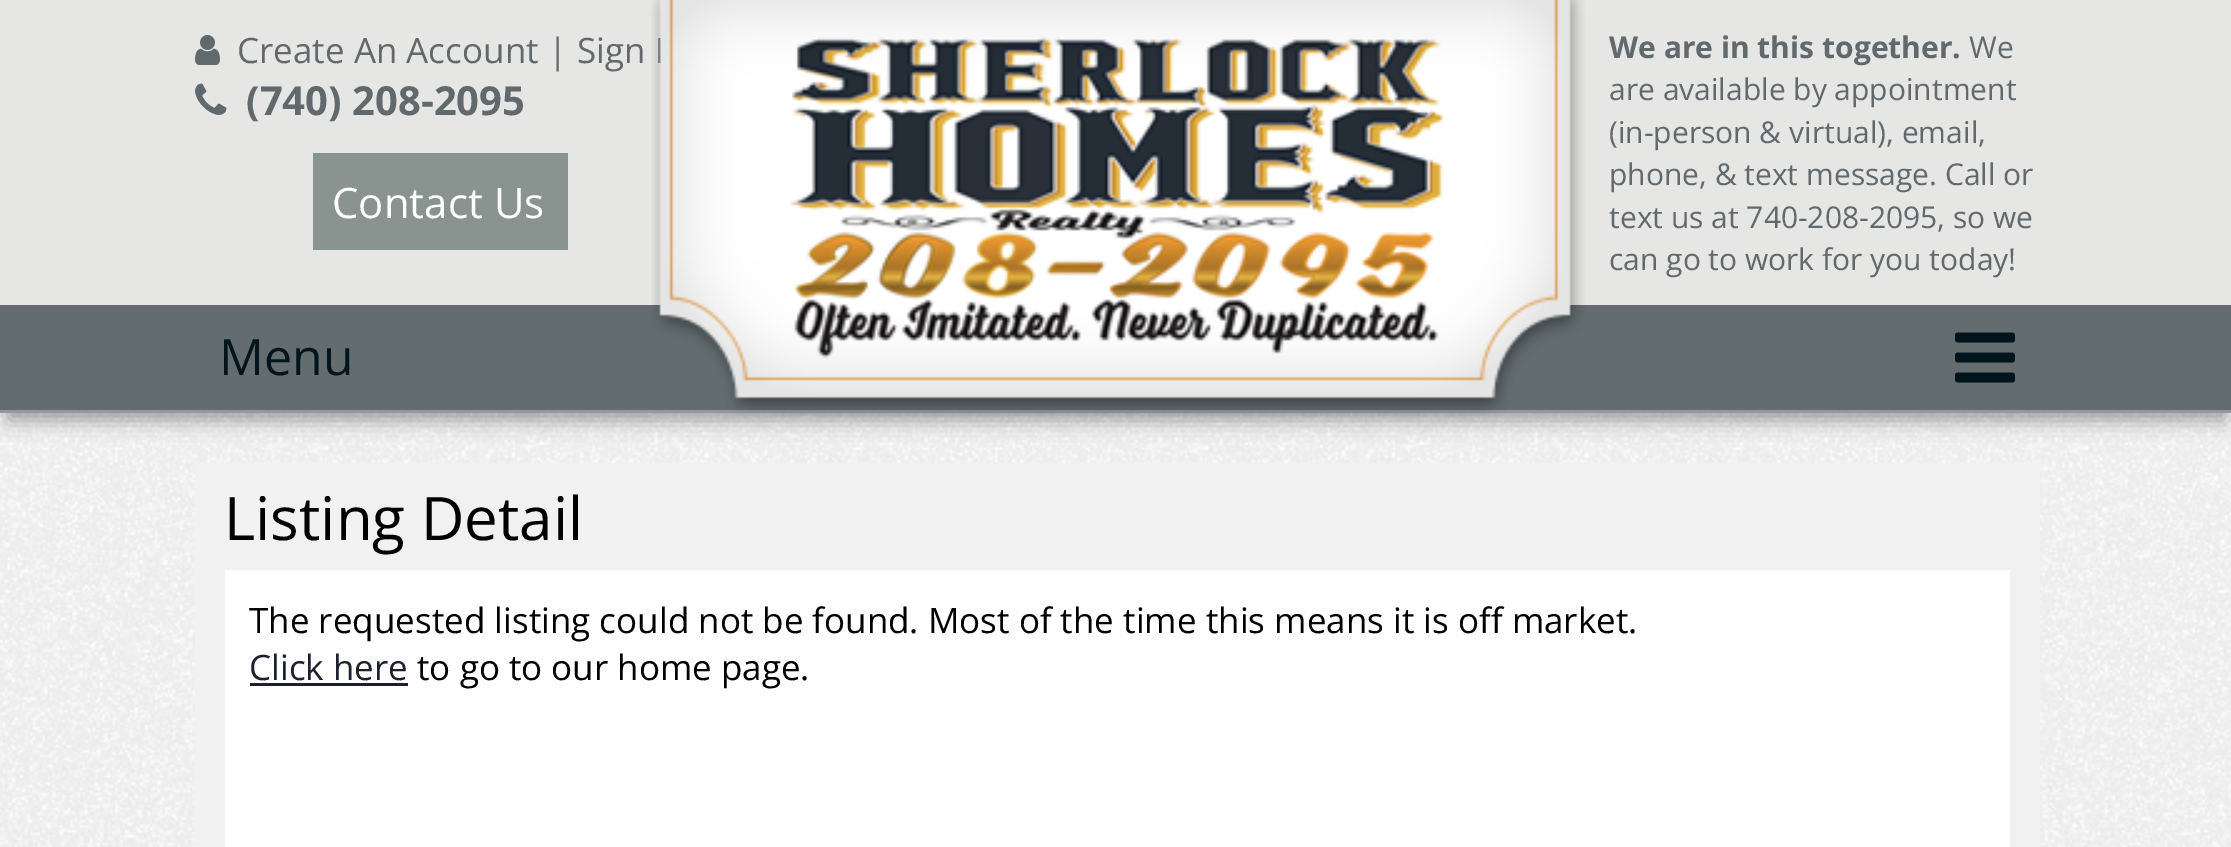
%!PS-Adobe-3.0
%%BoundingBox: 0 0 2231 847
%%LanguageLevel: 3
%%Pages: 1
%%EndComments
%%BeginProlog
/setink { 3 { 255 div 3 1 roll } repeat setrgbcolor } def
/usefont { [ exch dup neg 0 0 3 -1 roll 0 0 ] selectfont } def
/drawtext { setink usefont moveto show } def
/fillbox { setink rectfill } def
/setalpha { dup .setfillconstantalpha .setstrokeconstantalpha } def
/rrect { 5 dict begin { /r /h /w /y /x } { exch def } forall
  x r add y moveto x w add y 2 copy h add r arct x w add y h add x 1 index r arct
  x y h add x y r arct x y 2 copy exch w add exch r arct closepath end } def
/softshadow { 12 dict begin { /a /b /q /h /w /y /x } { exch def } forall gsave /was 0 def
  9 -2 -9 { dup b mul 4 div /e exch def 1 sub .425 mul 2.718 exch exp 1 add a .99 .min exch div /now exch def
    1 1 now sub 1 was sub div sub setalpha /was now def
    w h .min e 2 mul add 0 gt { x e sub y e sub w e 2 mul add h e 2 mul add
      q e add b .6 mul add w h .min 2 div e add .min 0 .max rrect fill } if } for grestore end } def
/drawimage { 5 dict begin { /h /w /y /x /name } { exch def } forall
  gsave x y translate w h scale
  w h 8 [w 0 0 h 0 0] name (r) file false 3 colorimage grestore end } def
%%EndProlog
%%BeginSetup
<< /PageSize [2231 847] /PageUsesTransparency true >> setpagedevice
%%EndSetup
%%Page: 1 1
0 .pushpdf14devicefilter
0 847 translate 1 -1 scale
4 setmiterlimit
0 0 2231 847 255 255 255 fillbox
(assets/img1.rgb) 0 413 2231 434 drawimage
0 0 0 setink
8 328 2217 92 0 10 0.35 softshadow
0 0 2231 305 230 230 229 fillbox
(assets/img2.rgb) 195 35 25 30 drawimage
(Create An Account) 237 63 /OpenSans-Regular 35 97 105 109 drawtext
(|) 548 63 /OpenSans-Regular 35 97 105 109 drawtext
(Sign I) 577 63 /OpenSans-Regular 35 97 105 109 drawtext
(assets/img3.rgb) 195 83 32 32 drawimage
(\(740\) 208-2095) 246 115 /OpenSans-Bold 40 97 105 109 drawtext
313 153 255 97 137 148 144 fillbox
(Contact Us) 332 218 /OpenSans-Regular 42 255 255 255 drawtext
0 305 2231 105 99 109 112 fillbox
0 410 2231 3 146 153 155 fillbox
(assets/img4.rgb) 651 0 934 417 drawimage
(We are in this together.) 1609 58 /OpenSans-Bold 30 97 105 109 drawtext
(We) 1969 58 /OpenSans-Regular 30 97 105 109 drawtext
(are available by appointment) 1609 100 /OpenSans-Regular 30 97 105 109 drawtext
(\(in-person & virtual\), email,) 1609 143 /OpenSans-Regular 30 97 105 109 drawtext
(phone, & text message. Call or) 1609 185 /OpenSans-Regular 30 97 105 109 drawtext
(text us at 740-208-2095, so we) 1609 228 /OpenSans-Regular 30 97 105 109 drawtext
(can go to work for you today!) 1609 270 /OpenSans-Regular 30 97 105 109 drawtext
(Menu) 219 375 /OpenSans-Regular 50 3 21 28 drawtext
(assets/img5.rgb) 1955 332 60 51 drawimage
195 463 1845 384 241 241 241 fillbox
(Listing Detail) 224 540 /OpenSans-Regular 60 0 0 0 drawtext
225 570 1785 277 255 255 255 fillbox
(The requested listing could not be found. Most of the time this means it is off market.) 249 633 /OpenSans-Regular 35 0 0 0 drawtext
(Click here) 249 680 /OpenSans-Regular 35 29 33 45 drawtext
250 683 158 3 29 33 45 fillbox
(to go to our home page.) 417 680 /OpenSans-Regular 35 0 0 0 drawtext
.poppdf14devicefilter showpage
%%EOF
